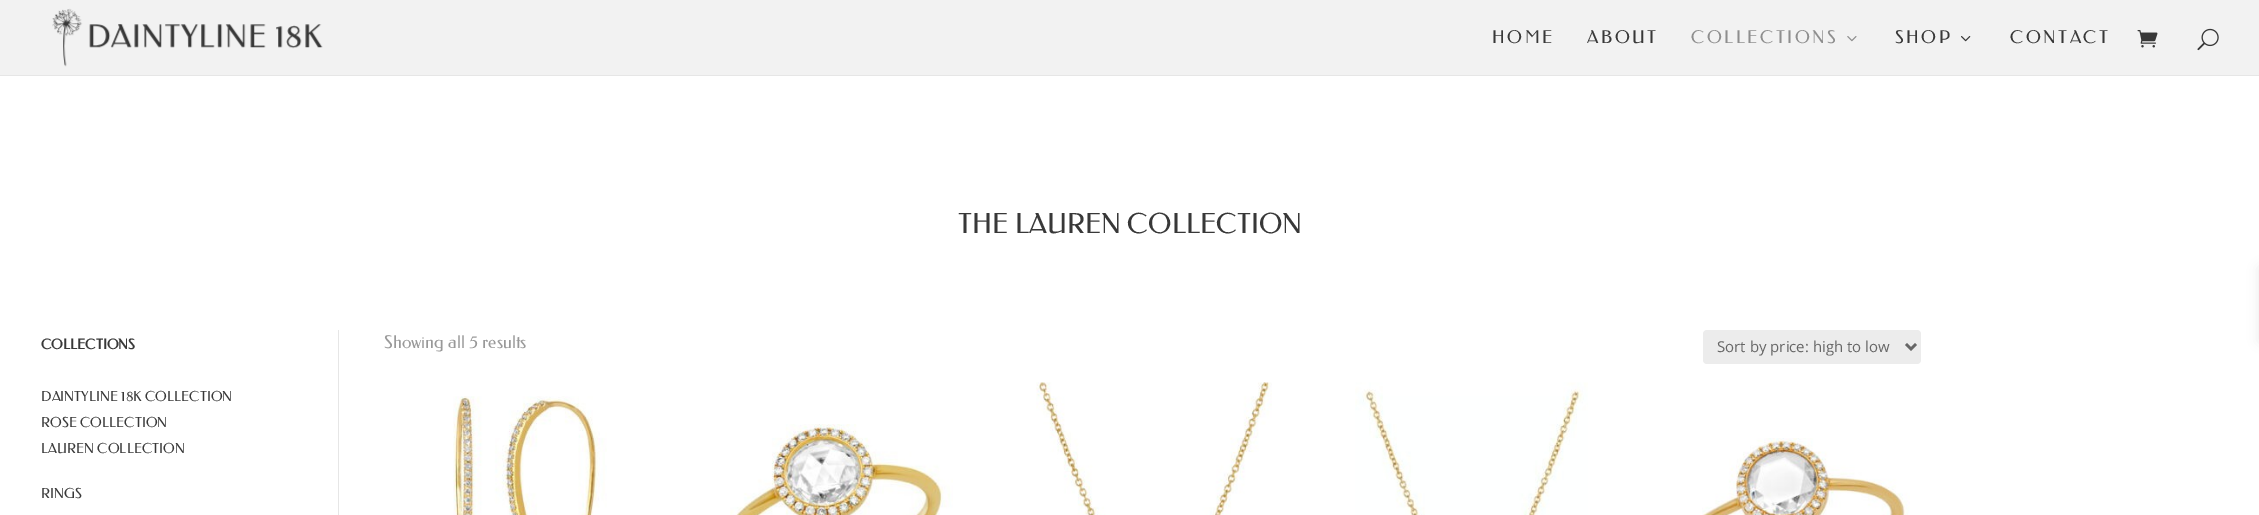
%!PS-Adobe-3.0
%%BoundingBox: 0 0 2259 515
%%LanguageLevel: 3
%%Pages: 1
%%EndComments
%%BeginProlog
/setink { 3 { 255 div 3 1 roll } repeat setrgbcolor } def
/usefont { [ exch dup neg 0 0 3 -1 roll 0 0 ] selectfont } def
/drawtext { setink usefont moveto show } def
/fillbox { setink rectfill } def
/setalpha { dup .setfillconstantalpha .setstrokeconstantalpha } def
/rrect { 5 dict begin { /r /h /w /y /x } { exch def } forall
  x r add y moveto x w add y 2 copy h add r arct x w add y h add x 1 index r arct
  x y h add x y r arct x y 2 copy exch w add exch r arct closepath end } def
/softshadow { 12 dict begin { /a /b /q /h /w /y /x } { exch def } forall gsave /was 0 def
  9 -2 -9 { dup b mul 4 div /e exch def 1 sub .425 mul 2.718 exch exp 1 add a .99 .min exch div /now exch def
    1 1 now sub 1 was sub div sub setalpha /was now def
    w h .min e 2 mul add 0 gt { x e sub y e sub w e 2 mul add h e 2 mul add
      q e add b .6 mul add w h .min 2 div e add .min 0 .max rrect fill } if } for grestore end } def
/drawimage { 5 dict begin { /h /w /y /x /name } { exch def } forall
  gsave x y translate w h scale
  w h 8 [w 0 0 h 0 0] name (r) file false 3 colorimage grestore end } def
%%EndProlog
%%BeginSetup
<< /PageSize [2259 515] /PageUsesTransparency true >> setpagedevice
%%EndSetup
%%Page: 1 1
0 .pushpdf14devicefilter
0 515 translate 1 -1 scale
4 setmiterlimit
0 0 2259 515 255 255 255 fillbox
0 75 2259 1 230 230 230 fillbox
0 0 2259 75 242 242 242 fillbox
(assets/img1.rgb) 52 8 271 59 drawimage
/Federo-Regular 17.5 usefont
56 56 56 setink
1492 43 moveto 2.5 0 (HOME) ashow
1587 43 moveto 2.5 0 (ABOUT) ashow
142 142 142 setink
1691 43 moveto 2.5 0 (COLLECTIONS) ashow
(assets/img2.rgb) 1847 36 10 6 drawimage
56 56 56 setink
1895 43 moveto 2.5 0 (SHOP) ashow
(assets/img3.rgb) 1961 36 10 6 drawimage
2010 43 moveto 2.5 0 (CONTACT) ashow
(assets/img4.rgb) 2137 30 21 18 drawimage
(assets/img5.rgb) 2197 28 22 23 drawimage
(THE LAUREN COLLECTION) 958 233 /Federo-Regular 27.5 56 56 56 drawtext
338 330 1 185 230 230 230 fillbox
(COLLECTIONS) 41 349 /Federo-Bold 13.75 56 56 56 drawtext
(DAINTYLINE 18K COLLECTION) 41 401 /Federo-Regular 13.75 56 56 56 drawtext
(ROSE COLLECTION) 41 427 /Federo-Regular 13.75 56 56 56 drawtext
(LAUREN COLLECTION) 41 453 /Federo-Regular 13.75 56 56 56 drawtext
(RINGS) 41 498 /Federo-Regular 13.75 56 56 56 drawtext
(Showing all 5 results) 384 348 /Federo-Regular 17.5 153 153 153 drawtext
236 236 236 setink
1703 330 218 34 4 rrect fill
102 102 102 setink
2.5 setlinewidth
1906 344 moveto 1911 349 lineto 1916 344 lineto stroke
(Sort by price: high to low) 1717 352 /OpenSans-Regular 15 102 102 102 drawtext
(assets/img6.rgb) 453 396 154 119 drawimage
(assets/img7.rgb) 730 424 223 91 drawimage
(assets/img8.rgb) 1036 382 236 133 drawimage
(assets/img9.rgb) 1355 382 233 133 drawimage
(assets/img10.rgb) 1702 438 208 77 drawimage
0 0 0 setink
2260 268 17 73 0 6 0.1 softshadow
.poppdf14devicefilter showpage
%%EOF
